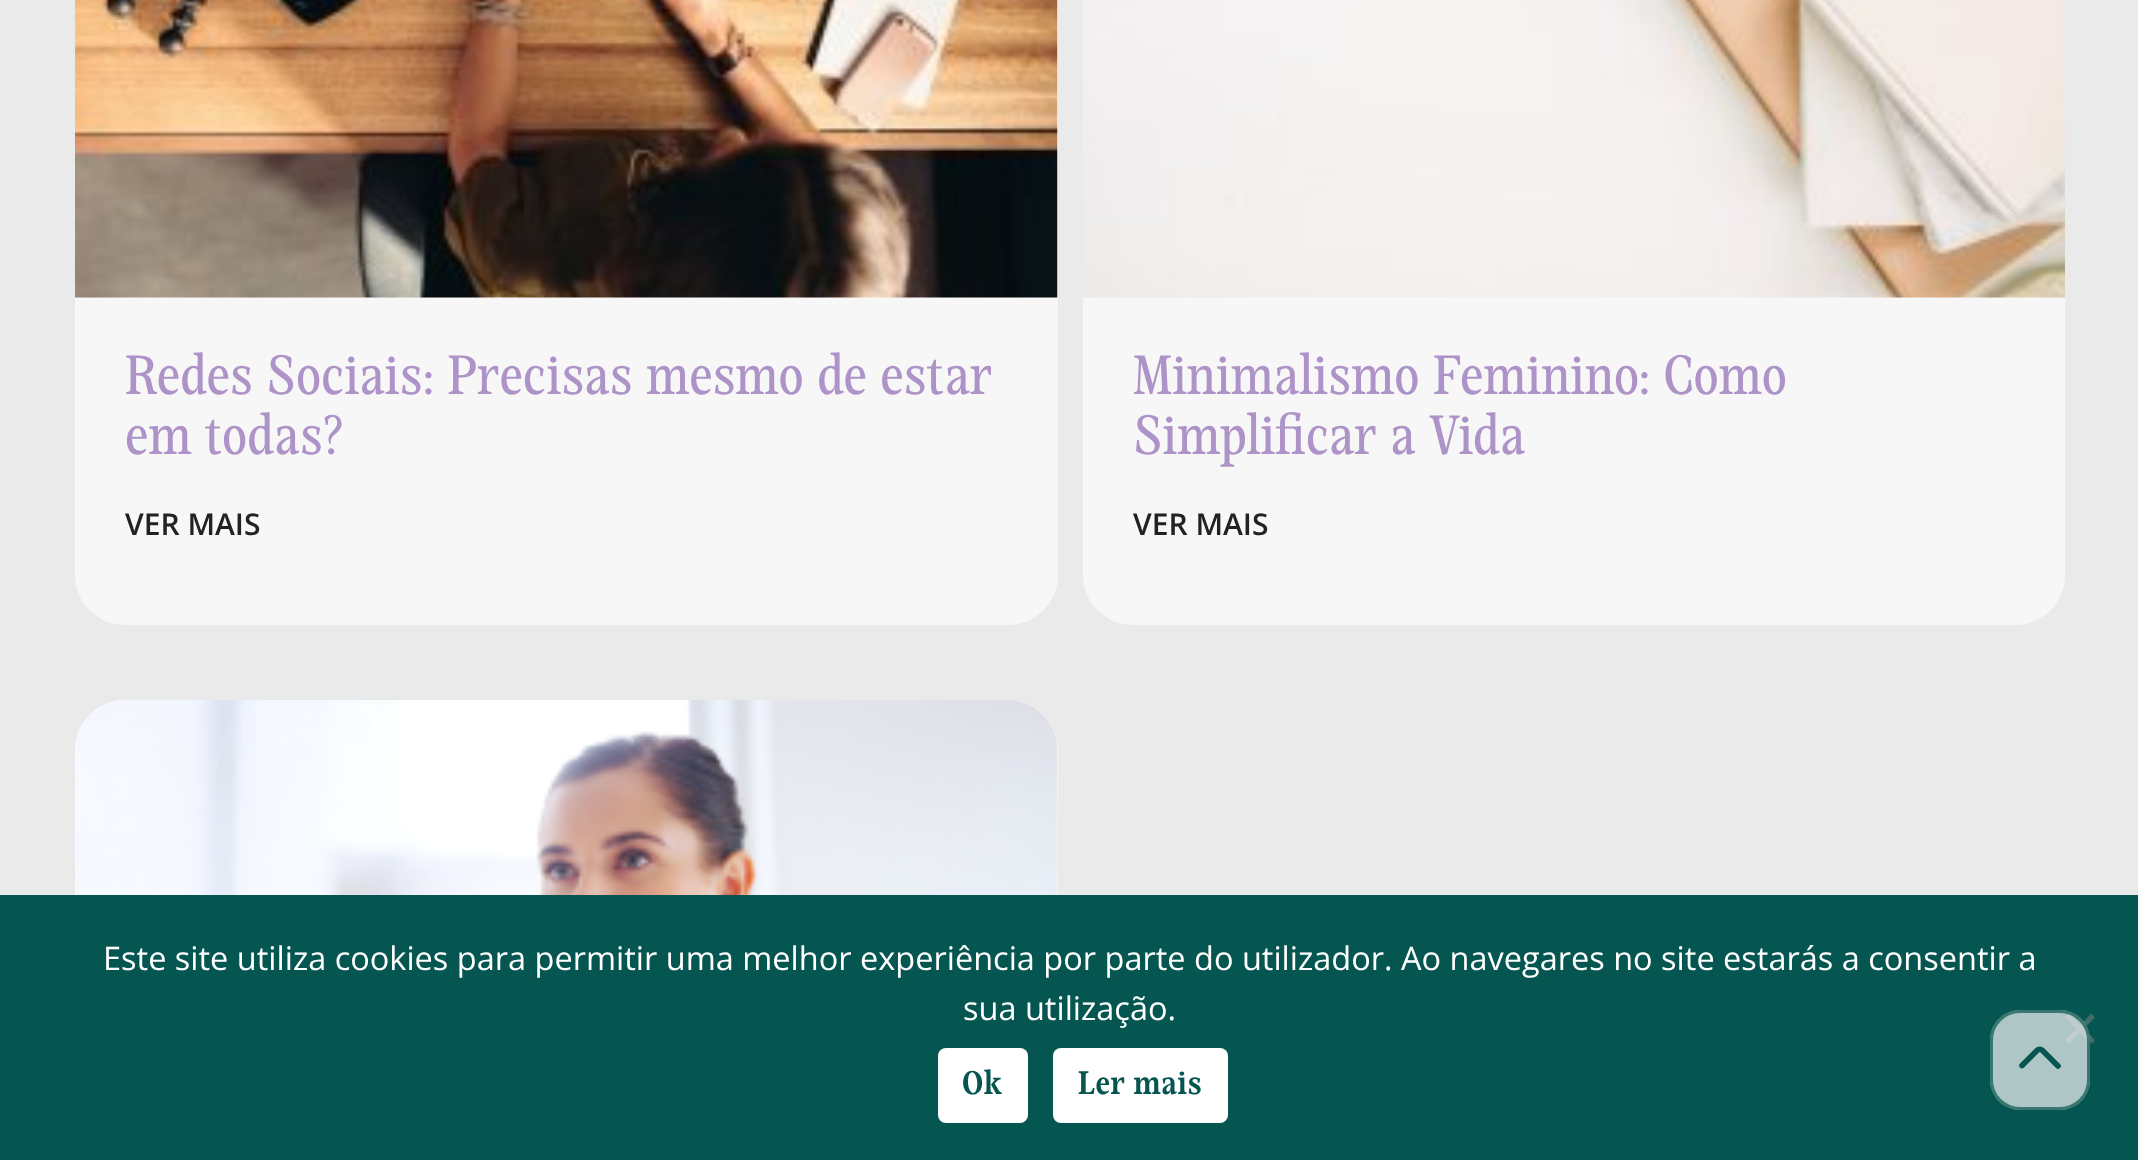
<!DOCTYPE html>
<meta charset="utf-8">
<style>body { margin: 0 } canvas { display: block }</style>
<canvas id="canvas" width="2138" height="1160"></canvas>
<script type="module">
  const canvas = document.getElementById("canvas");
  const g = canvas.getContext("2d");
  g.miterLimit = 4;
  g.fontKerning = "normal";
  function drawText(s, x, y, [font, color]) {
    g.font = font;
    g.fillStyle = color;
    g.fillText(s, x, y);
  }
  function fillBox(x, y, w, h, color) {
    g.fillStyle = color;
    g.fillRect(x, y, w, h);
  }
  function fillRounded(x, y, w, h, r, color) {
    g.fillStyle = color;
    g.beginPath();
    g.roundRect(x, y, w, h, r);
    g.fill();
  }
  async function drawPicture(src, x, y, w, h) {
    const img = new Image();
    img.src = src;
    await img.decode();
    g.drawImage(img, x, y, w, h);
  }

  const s1 = ["55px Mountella", "#AE93C8"];
  const s2 = ["600 30px Open Sans", "#222222"];
  const s3 = ["32.5px Open Sans", "#FFFFFF"];
  const s4 = ["600 32.5px Mountella", "#055650"];

  fillBox(0, 0, 2138, 1160, "#EAEAEA");
  fillRounded(75, -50, 983, 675, 50, "#F7F7F7");
  await drawPicture("pic1.png", 75, 0, 983, 298);
  drawText("Redes Sociais: Precisas mesmo de estar", 125, 394, s1);
  drawText("em todas?", 125, 454, s1);
  drawText("VER MAIS", 125, 535, s2);
  fillRounded(1083, -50, 982, 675, 50, "#F7F7F7");
  await drawPicture("pic2.png", 1083, 0, 982, 298);
  drawText("Minimalismo Feminino: Como", 1133, 394, s1);
  drawText("Simplificar a Vida", 1133, 454, s1);
  drawText("VER MAIS", 1133, 535, s2);
  fillRounded(75, 700, 983, 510, 50, "#F7F7F7");
  await drawPicture("pic3.png", 75, 700, 983, 195);
  fillBox(0, 895, 2138, 265, "#055650");
  drawText("Este site utiliza cookies para permitir uma melhor experiência por parte do utilizador. Ao navegares no site estarás a consentir a", 103, 970, s3);
  drawText("sua utilização.", 963, 1020, s3);
  g.fillStyle = "#436B68";
  g.beginPath();
  g.moveTo(2091.5, 1013.5);
  g.lineTo(2095, 1017.5);
  g.lineTo(2068.5, 1044);
  g.lineTo(2065, 1040);
  g.closePath();
  g.fill();
  g.beginPath();
  g.moveTo(2065, 1017.5);
  g.lineTo(2068.5, 1013.5);
  g.lineTo(2095, 1040);
  g.lineTo(2091.5, 1044);
  g.closePath();
  g.fill();
  fillRounded(938, 1048, 90, 75, 8, "#FFFFFF");
  g.letterSpacing = "0.5px";
  drawText("Ok", 962, 1094, s4);
  fillRounded(1053, 1048, 175, 75, 8, "#FFFFFF");
  drawText("Ler mais", 1078, 1094, s4);
  fillRounded(1990, 1010, 100, 100, 30, "rgba(247, 247, 247, 0.7)");
  g.beginPath();
  g.roundRect(1991.5, 1011.5, 97, 97, 28.5);
  g.strokeStyle = "rgba(5, 86, 80, 0.7)";
  g.lineWidth = 3;
  g.stroke();
  g.beginPath();
  g.moveTo(2058, 1066);
  g.lineTo(2042.5, 1050.5);
  g.bezierCurveTo(2041, 1049, 2038.5, 1049, 2037, 1050.5);
  g.lineTo(2022, 1065.5);
  g.strokeStyle = "#055650";
  g.lineWidth = 5.6;
  g.lineCap = "round";
  g.lineJoin = "bevel";
  g.stroke();
</script>
